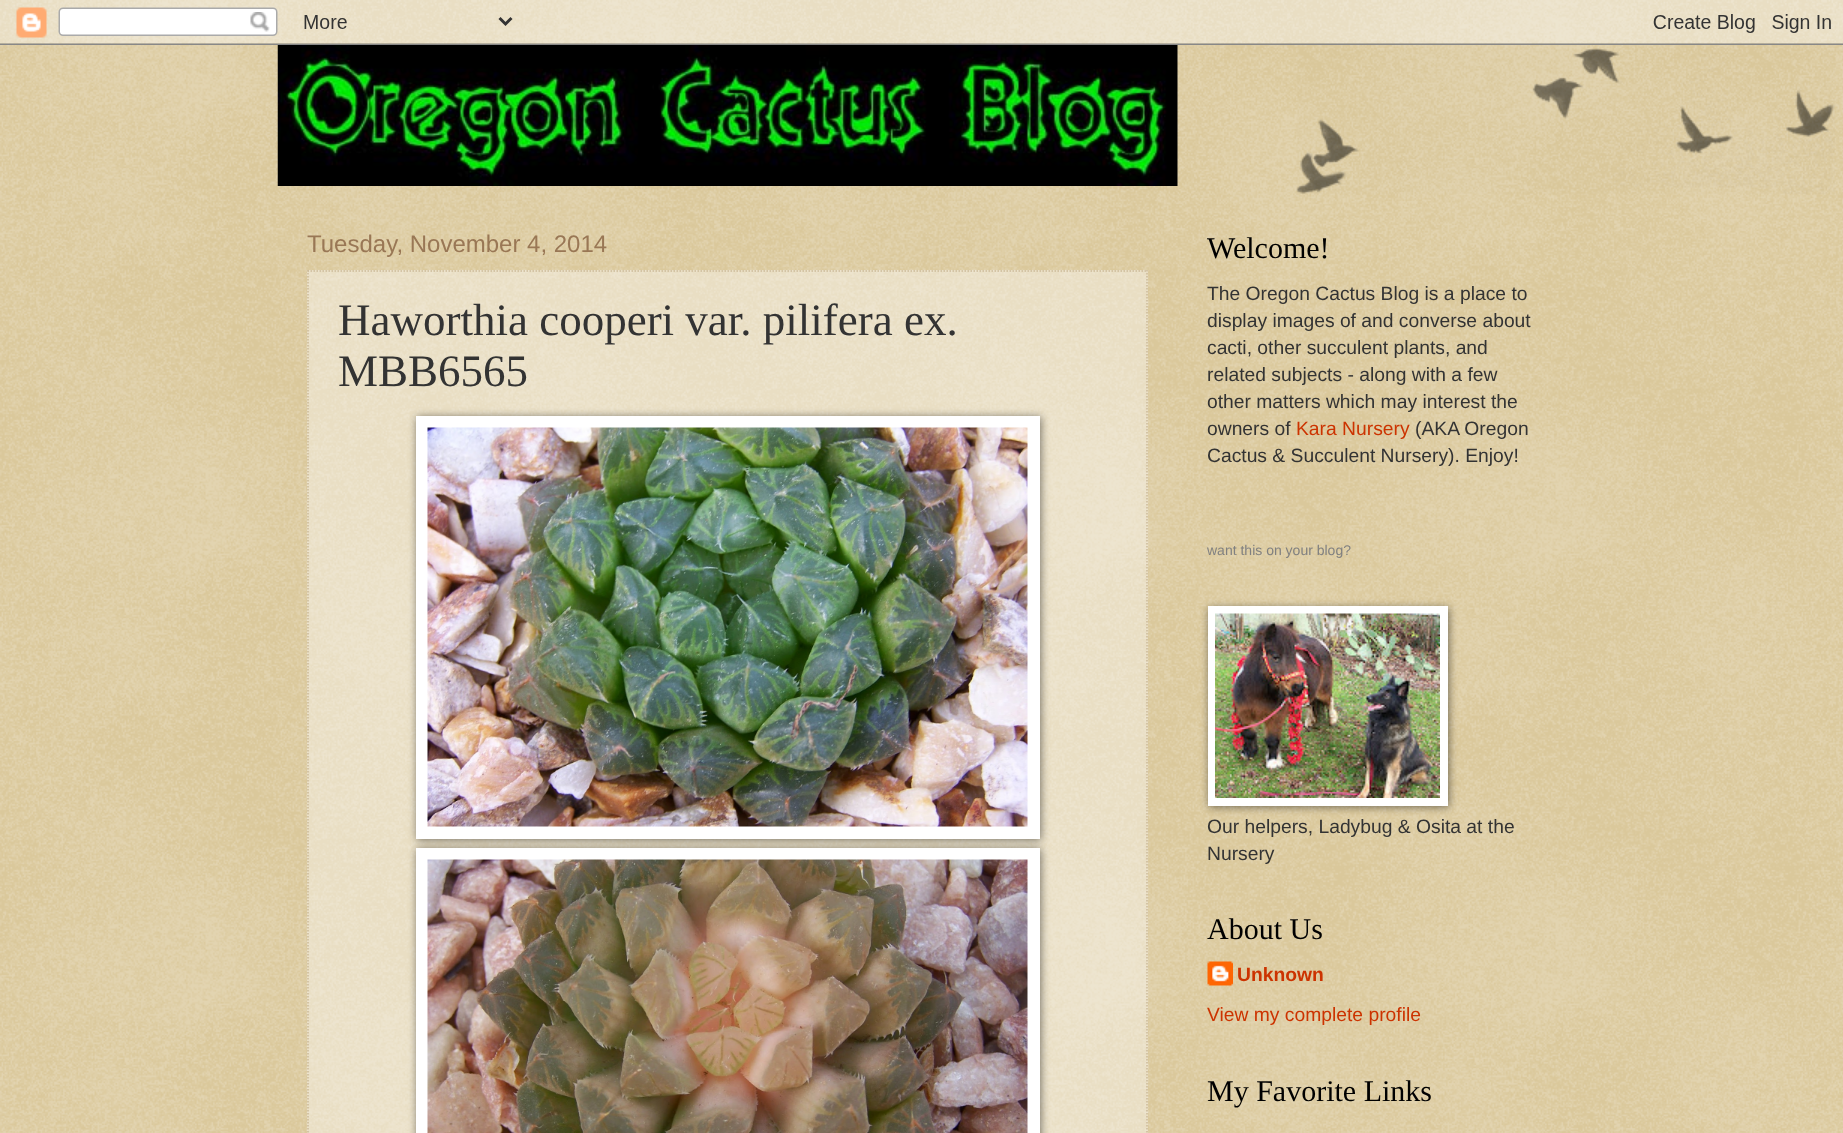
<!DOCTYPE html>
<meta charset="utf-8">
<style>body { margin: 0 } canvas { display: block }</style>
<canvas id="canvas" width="1843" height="1133"></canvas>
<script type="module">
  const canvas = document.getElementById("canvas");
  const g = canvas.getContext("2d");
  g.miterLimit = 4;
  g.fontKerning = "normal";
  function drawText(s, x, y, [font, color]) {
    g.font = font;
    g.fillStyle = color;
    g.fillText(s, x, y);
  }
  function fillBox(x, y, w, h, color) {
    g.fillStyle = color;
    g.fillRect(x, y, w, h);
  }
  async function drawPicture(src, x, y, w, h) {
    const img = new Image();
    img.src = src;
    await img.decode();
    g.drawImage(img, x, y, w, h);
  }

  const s1 = ["24px Liberation Sans", "#997755"];
  const s2 = ["45px Liberation Serif", "#333333"];
  const s3 = ["30px Liberation Serif", "#000000"];
  const s4 = ["19.3px Liberation Sans", "#333333"];
  const s5 = ["19.3px Liberation Sans", "#CC3300"];
  const s6 = ["14px Liberation Sans", "#808080"];
  const s7 = ["bold 19.3px Liberation Sans", "#CC3300"];

  fillBox(0, 0, 1843, 1133, "#C0A154");
  await drawPicture("pic1.png", 0, 0, 1843, 1133);
  await drawPicture("pic2.png", 0, 0, 1843, 45);
  await drawPicture("pic3.png", 1296, 48, 539, 146);
  await drawPicture("pic4.png", 277, 45, 901, 141);
  drawText("Tuesday, November 4, 2014", 307, 252, s1);
  fillBox(307, 270, 841, 863, "rgba(255, 255, 255, 0.4)");
  g.beginPath();
  g.moveTo(307.5, 271);
  g.lineTo(1147.5, 271);
  g.strokeStyle = "#CCBB99";
  g.lineWidth = 1.5;
  g.setLineDash([1.5, 1.5]);
  g.stroke();
  g.beginPath();
  g.moveTo(1147, 270);
  g.lineTo(1147, 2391);
  g.stroke();
  g.beginPath();
  g.moveTo(308, 270);
  g.lineTo(308, 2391);
  g.stroke();
  drawText("Haworthia cooperi var. pilifera ex.", 338, 335, s2);
  drawText("MBB6565", 338, 386, s2);
  g.fillStyle = "rgba(0, 0, 0, 0.5)";
  g.filter = "blur(4px)";
  g.beginPath();
  g.rect(417, 417, 624, 423);
  g.fill();
  g.filter = "none";
  fillBox(416, 416, 624, 423, "#FFFFFF");
  await drawPicture("pic5.png", 427, 427, 601, 400);
  g.fillStyle = "rgba(0, 0, 0, 0.5)";
  g.filter = "blur(4px)";
  g.beginPath();
  g.rect(417, 849, 624, 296);
  g.fill();
  g.filter = "none";
  fillBox(416, 848, 624, 285, "#FFFFFF");
  await drawPicture("pic6.png", 427, 859, 601, 274);
  drawText("Welcome!", 1207, 258, s3);
  drawText("The Oregon Cactus Blog is a place to", 1207, 300, s4);
  drawText("display images of and converse about", 1207, 327, s4);
  drawText("cacti, other succulent plants, and", 1207, 354, s4);
  drawText("related subjects - along with a few", 1207, 381, s4);
  drawText("other matters which may interest the", 1207, 408, s4);
  drawText("owners of", 1207, 435, s4);
  drawText("Kara Nursery", 1296, 435, s5);
  drawText("(AKA Oregon", 1415, 435, s4);
  drawText("Cactus & Succulent Nursery). Enjoy!", 1207, 462, s4);
  drawText("want this on your blog?", 1207, 555, s6);
  g.fillStyle = "rgba(0, 0, 0, 0.5)";
  g.filter = "blur(4px)";
  g.beginPath();
  g.rect(1209, 608, 240, 199);
  g.fill();
  g.filter = "none";
  fillBox(1208, 606, 240, 200, "#FFFFFF");
  await drawPicture("pic7.png", 1215, 613, 225, 185);
  drawText("Our helpers, Ladybug & Osita at the", 1207, 833, s4);
  drawText("Nursery", 1207, 860, s4);
  drawText("About Us", 1207, 939, s3);
  await drawPicture("pic8.png", 1207, 961, 26, 25);
  drawText("Unknown", 1237, 981, s7);
  drawText("View my complete profile", 1207, 1021, s5);
  drawText("My Favorite Links", 1207, 1101, s3);
</script>
